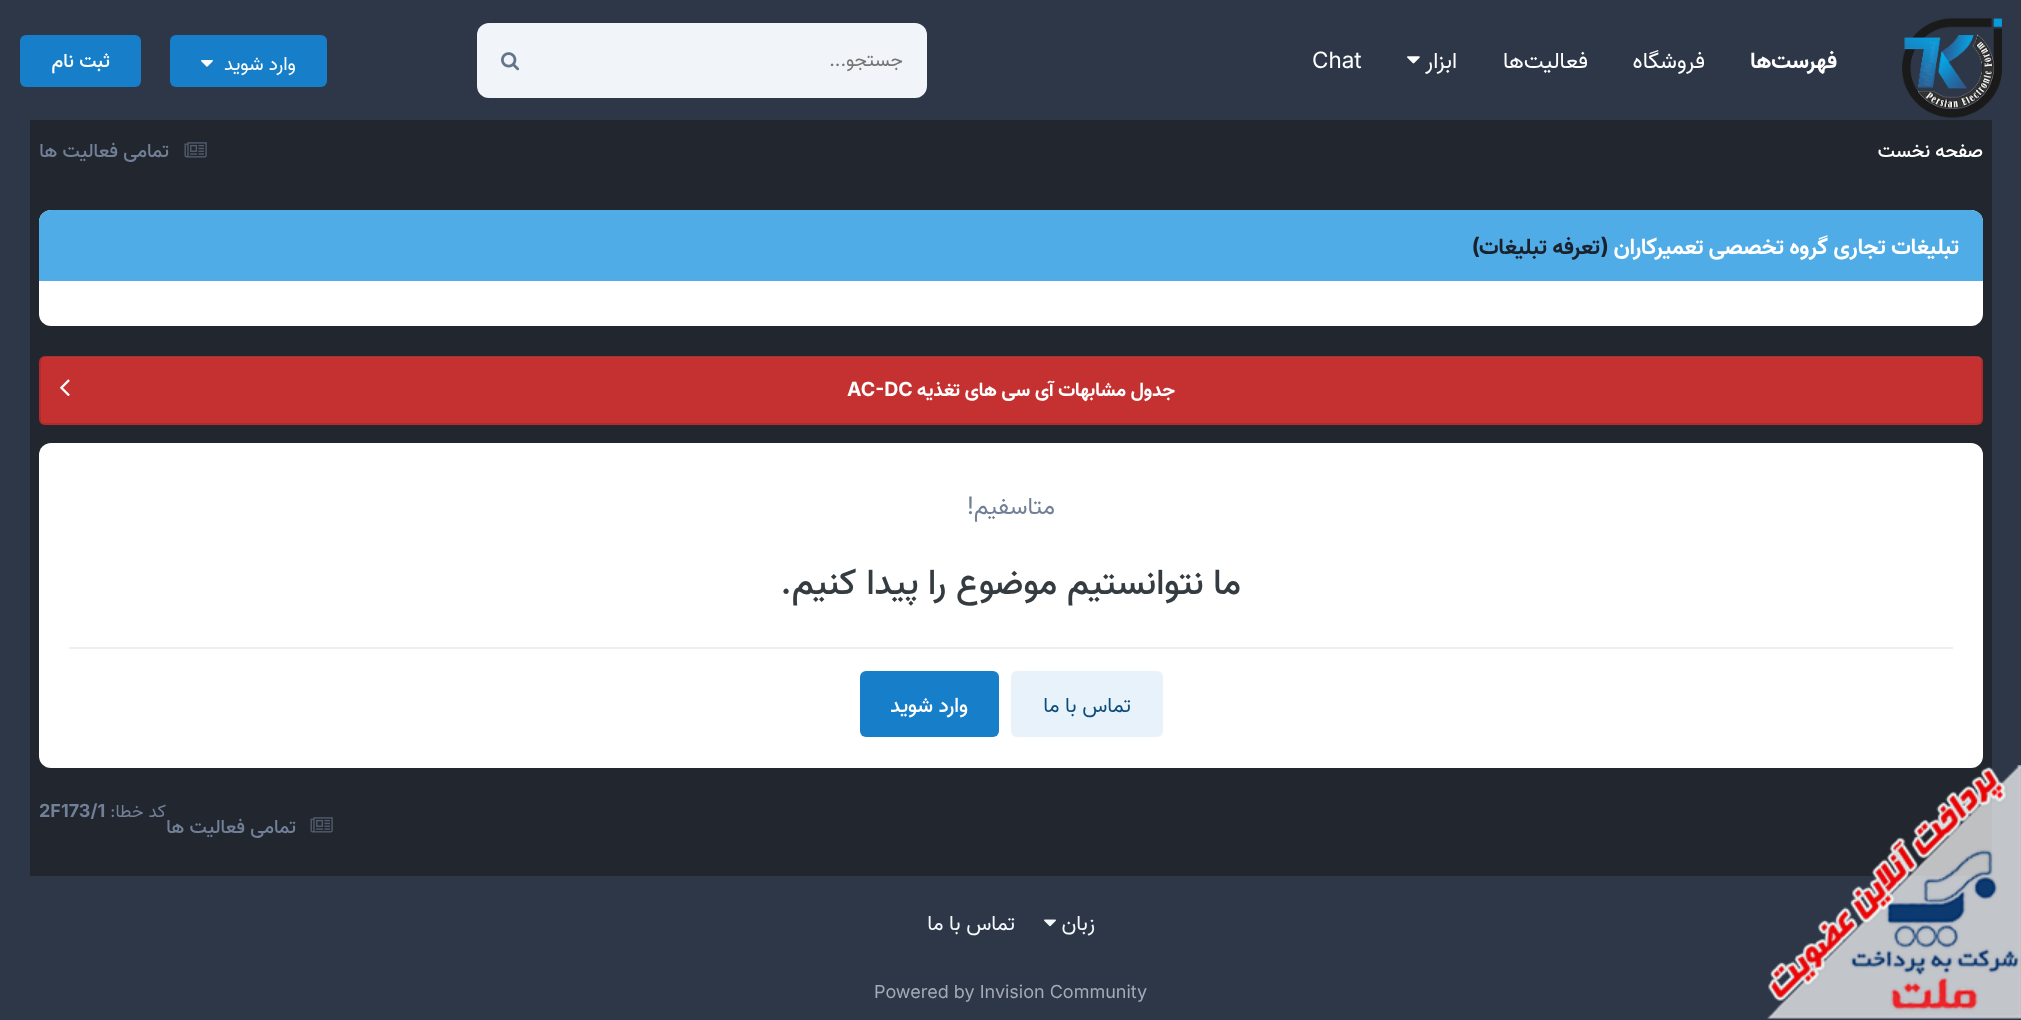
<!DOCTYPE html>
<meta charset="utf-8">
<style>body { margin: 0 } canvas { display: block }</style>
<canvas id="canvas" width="2021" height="1020"></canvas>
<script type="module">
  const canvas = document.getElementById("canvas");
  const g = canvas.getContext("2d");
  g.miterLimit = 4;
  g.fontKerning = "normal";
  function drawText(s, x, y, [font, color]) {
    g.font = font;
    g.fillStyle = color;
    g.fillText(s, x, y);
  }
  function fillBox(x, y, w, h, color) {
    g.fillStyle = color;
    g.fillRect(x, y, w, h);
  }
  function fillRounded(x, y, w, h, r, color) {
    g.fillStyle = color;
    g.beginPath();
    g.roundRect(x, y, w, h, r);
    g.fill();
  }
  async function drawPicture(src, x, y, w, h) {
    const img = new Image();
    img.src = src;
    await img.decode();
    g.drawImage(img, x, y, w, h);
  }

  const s1 = ["bold 22.5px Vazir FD", "#FFFFFF"];
  const s2 = ["22.5px Vazir FD", "#FFFFFF"];
  const s3 = ["22.5px Inter", "#FFFFFF"];
  const s4 = ["19.5px Vazir FD", "#757575"];
  const s5 = ["19.5px Inter", "#757575"];
  const s6 = ["19.5px Vazir FD", "#FFFFFF"];
  const s7 = ["500 19.5px Vazir FD", "#FFFFFF"];
  const s8 = ["500 19.5px Vazir FD", "#718096"];
  const s9 = ["bold 22.5px Inter", "#1A202C"];
  const s10 = ["bold 22.5px Vazir FD", "#1A202C"];
  const s11 = ["bold 19.5px Vazir FD", "#FFFFFF"];
  const s12 = ["bold 19.5px Inter", "#FFFFFF"];
  const s13 = ["24px Vazir FD", "#718096"];
  const s14 = ["24px Inter", "#718096"];
  const s15 = ["500 36px Vazir FD", "#353C41"];
  const s16 = ["21px Vazir FD", "#0E4C79"];
  const s17 = ["500 21px Vazir FD", "#FFFFFF"];
  const s18 = ["18px Vazir FD", "#718096"];
  const s19 = ["bold 18px Inter", "#718096"];
  const s20 = ["21px Vazir FD", "#F4F9FC"];
  const s21 = ["18px Inter", "#A4ABB4"];

  fillBox(0, 0, 2021, 1020, "#2D3748");
  await drawPicture("pic1.png", 1902, 18, 100, 100);
  g.direction = "rtl";
  drawText("فهرست‌ها", 1837, 68, s1);
  drawText("فروشگاه", 1705, 68, s2);
  drawText("فعالیت‌ها", 1588, 68, s2);
  drawText("ابزار", 1457, 68, s2);
  await drawPicture("pic2.png", 1407, 56, 13, 8);
  g.direction = "ltr";
  drawText("Chat", 1312, 68, s3);
  fillRounded(477, 23, 450, 75, 12, "#F1F5F9");
  g.direction = "rtl";
  drawText("جستجو", 903, 66, s4);
  drawText("...", 846, 66, s5);
  await drawPicture("pic3.png", 501, 52, 19, 19);
  fillRounded(170, 35, 157, 52, 6, "#177EC9");
  drawText("وارد شوید", 296, 70, s6);
  await drawPicture("pic4.png", 201, 60, 12, 7);
  fillRounded(20, 35, 121, 52, 6, "#177EC9");
  drawText("ثبت نام", 110, 67, s7);
  fillBox(30, 120, 1962, 756, "#22262F");
  drawText("صفحه نخست", 1983, 157, s7);
  await drawPicture("pic5.png", 184, 142, 23, 16);
  drawText("تمامی فعالیت ها", 169, 157, s8);
  fillRounded(39, 210, 1944, 116, 12, "#FFFFFF");
  g.fillStyle = "#50ACE7";
  g.beginPath();
  g.roundRect(39, 210, 1944, 71, [12, 12, 0, 0]);
  g.fill();
  g.wordSpacing = "-0.5px";
  drawText("تبلیغات تجاری گروه تخصصی تعمیرکاران", 1959, 254, s1);
  g.wordSpacing = "0px";
  drawText("(", 1609, 254, s9);
  g.wordSpacing = "-0.5px";
  drawText("تعرفه تبلیغات", 1600, 254, s10);
  g.wordSpacing = "0px";
  drawText(")", 1480, 254, s9);
  fillRounded(39, 356, 1944, 69, 6, "#C53030");
  g.fillStyle = "#CB4545";
  g.beginPath();
  g.moveTo(45, 358);
  g.lineTo(1977, 358);
  g.bezierCurveTo(1979, 358, 1982, 361, 1982, 363);
  g.lineTo(1982, 362);
  g.bezierCurveTo(1982, 359, 1980, 357, 1977, 357);
  g.lineTo(46, 357);
  g.bezierCurveTo(44, 357, 42, 358, 41, 360);
  g.bezierCurveTo(42, 359, 44, 358, 45, 358);
  g.closePath();
  g.fill();
  g.beginPath();
  g.roundRect(40, 357, 1942, 67, 5);
  g.strokeStyle = "rgba(0, 0, 0, 0.1)";
  g.lineWidth = 2;
  g.stroke();
  g.wordSpacing = "-0.5px";
  drawText("جدول مشابهات آی سی های تغذیه", 1175, 396, s11);
  g.wordSpacing = "0px";
  g.direction = "ltr";
  drawText("AC-DC", 847, 396, s12);
  await drawPicture("pic6.png", 60, 379, 10, 17);
  fillRounded(39, 443, 1944, 325, 12, "#FFFFFF");
  g.direction = "rtl";
  drawText("متاسفیم", 1055, 514, s13);
  drawText("!", 974, 514, s14);
  drawText("ما نتوانستیم موضوع را پیدا کنیم.", 1241, 594, s15);
  fillBox(69, 647, 1884, 2, "#EFEFF0");
  fillRounded(1011, 671, 152, 66, 6, "#E8F2FA");
  drawText("تماس با ما", 1131, 712, s16);
  fillRounded(860, 671, 139, 66, 6, "#177EC9");
  drawText("وارد شوید", 968, 712, s17);
  drawText("کد خطا:", 166, 817, s18);
  g.direction = "ltr";
  drawText("2F173/1", 39, 817, s19);
  await drawPicture("pic5.png", 310, 817, 23, 16);
  g.direction = "rtl";
  drawText("تمامی فعالیت ها", 296, 833, s8);
  await drawPicture("pic7.png", 1767, 765, 254, 254);
  drawText("زبان", 1095, 930, s20);
  await drawPicture("pic8.png", 1044, 919, 12, 8);
  drawText("تماس با ما", 1015, 930, s20);
  g.direction = "ltr";
  drawText("Powered by Invision Community", 874, 998, s21);
</script>
